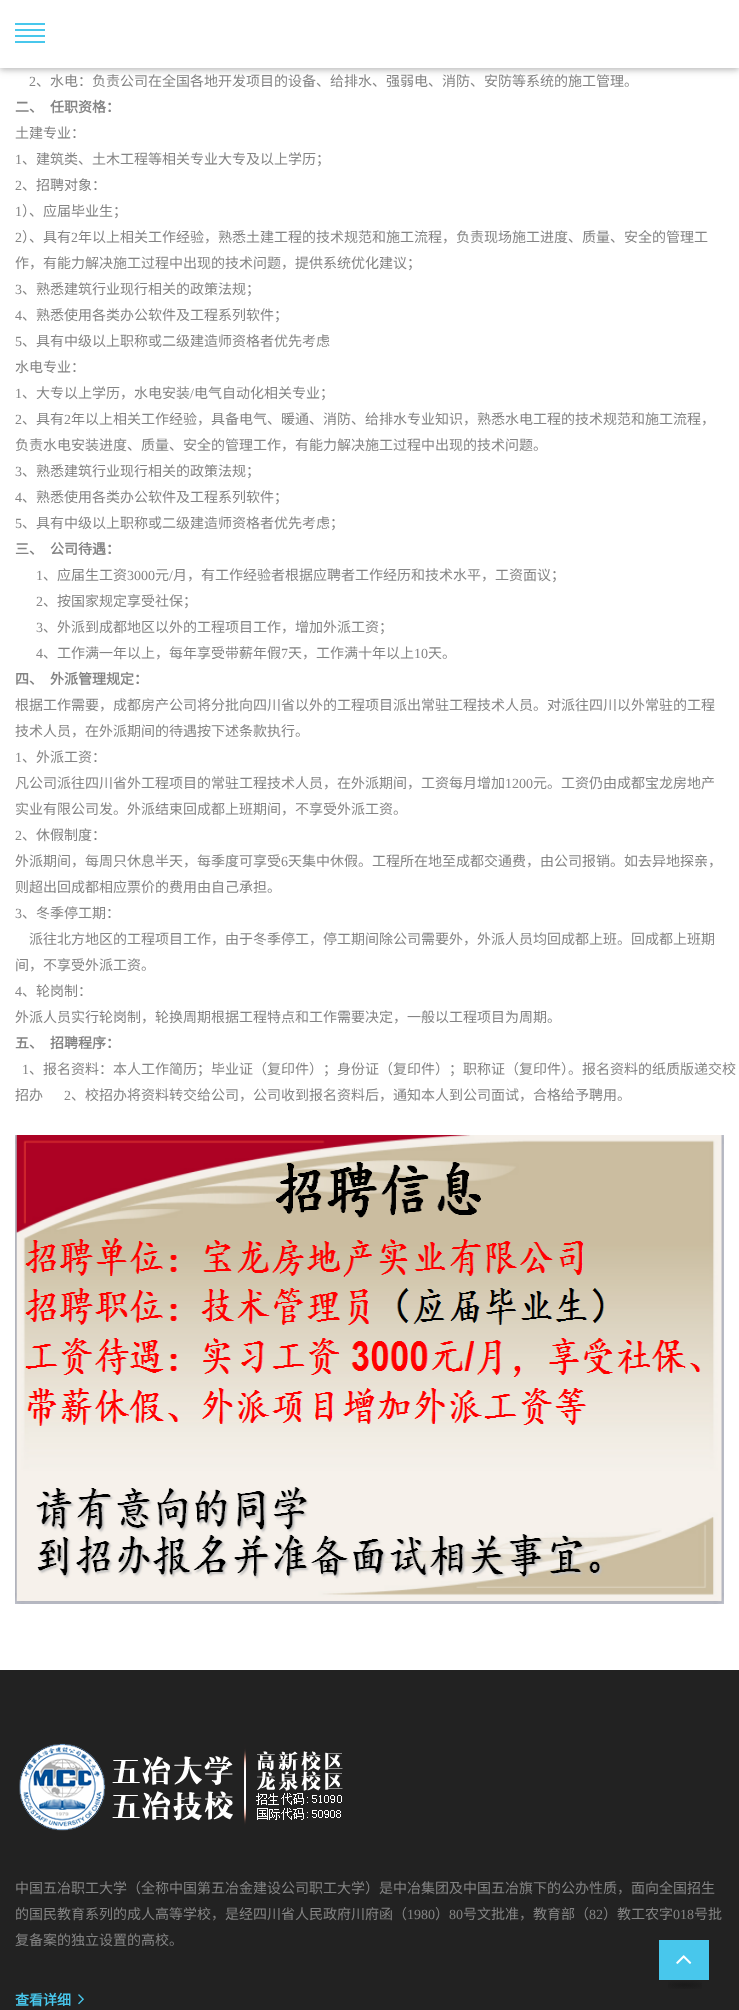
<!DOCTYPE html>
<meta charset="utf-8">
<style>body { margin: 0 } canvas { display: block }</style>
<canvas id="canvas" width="739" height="2010"></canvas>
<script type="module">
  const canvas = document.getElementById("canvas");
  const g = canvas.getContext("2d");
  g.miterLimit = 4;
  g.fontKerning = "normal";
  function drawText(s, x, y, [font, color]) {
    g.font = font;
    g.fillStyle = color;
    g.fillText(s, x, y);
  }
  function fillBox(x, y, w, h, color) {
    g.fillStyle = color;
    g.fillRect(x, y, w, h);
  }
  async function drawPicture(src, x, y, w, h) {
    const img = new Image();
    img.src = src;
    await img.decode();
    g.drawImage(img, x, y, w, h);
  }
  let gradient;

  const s1 = ["14px Liberation Serif", "#848484"];
  const s2 = ["14px Noto Sans CJK SC", "#848484"];
  const s3 = ["bold 14px Noto Sans CJK SC", "#848484"];
  const s4 = ["bold 14px Noto Sans CJK SC", "#48C7EC"];

  fillBox(0, 0, 739, 2010, "#FFFFFF");
  g.fillStyle = "rgba(0, 0, 0, 0.12)";
  g.filter = "blur(5px)";
  g.beginPath();
  g.rect(0, 2, 739, 68);
  g.fill();
  g.filter = "none";
  g.fillStyle = "rgba(0, 0, 0, 0.16)";
  g.filter = "blur(2.5px)";
  g.beginPath();
  g.rect(0, 2, 739, 68);
  g.fill();
  g.filter = "none";
  fillBox(0, 0, 739, 68, "#FFFFFF");
  fillBox(15, 23, 30, 2, "#48C7EC");
  fillBox(15, 29, 30, 2, "#48C7EC");
  fillBox(15, 35, 30, 2, "#48C7EC");
  fillBox(15, 41, 30, 2, "#48C7EC");
  drawText("2", 29, 86, s1);
  drawText("、水电：负责公司在全国各地开发项目的设备、给排水、强弱电、消防、安防等系统的施工管理。", 36, 86, s2);
  drawText("二、　任职资格：", 15, 112, s3);
  drawText("土建专业：", 15, 138, s2);
  drawText("1", 15, 164, s1);
  drawText("、建筑类、土木工程等相关专业大专及以上学历；", 22, 164, s2);
  drawText("2", 15, 190, s1);
  drawText("、招聘对象：", 22, 190, s2);
  drawText("1", 15, 216, s1);
  drawText("）、应届毕业生；", 22, 216, s2);
  drawText("2", 15, 242, s1);
  drawText("）、具有", 22, 242, s2);
  drawText("2", 71, 242, s1);
  drawText("年以上相关工作经验，熟悉土建工程的技术规范和施工流程，负责现场施工进度、质量、安全的管理工", 78, 242, s2);
  drawText("作，有能力解决施工过程中出现的技术问题，提供系统优化建议；", 15, 268, s2);
  drawText("3", 15, 294, s1);
  drawText("、熟悉建筑行业现行相关的政策法规；", 22, 294, s2);
  drawText("4", 15, 320, s1);
  drawText("、熟悉使用各类办公软件及工程系列软件；", 22, 320, s2);
  drawText("5", 15, 346, s1);
  drawText("、具有中级以上职称或二级建造师资格者优先考虑", 22, 346, s2);
  drawText("水电专业：", 15, 372, s2);
  drawText("1", 15, 398, s1);
  drawText("、大专以上学历，水电安装", 22, 398, s2);
  drawText("/", 190, 398, s1);
  drawText("电气自动化相关专业；", 194, 398, s2);
  drawText("2", 15, 424, s1);
  drawText("、具有", 22, 424, s2);
  drawText("2", 64, 424, s1);
  drawText("年以上相关工作经验，具备电气、暖通、消防、给排水专业知识，熟悉水电工程的技术规范和施工流程，", 71, 424, s2);
  drawText("负责水电安装进度、质量、安全的管理工作，有能力解决施工过程中出现的技术问题。", 15, 450, s2);
  drawText("3", 15, 476, s1);
  drawText("、熟悉建筑行业现行相关的政策法规；", 22, 476, s2);
  drawText("4", 15, 502, s1);
  drawText("、熟悉使用各类办公软件及工程系列软件；", 22, 502, s2);
  drawText("5", 15, 528, s1);
  drawText("、具有中级以上职称或二级建造师资格者优先考虑；", 22, 528, s2);
  drawText("三、　公司待遇：", 15, 554, s3);
  drawText("1", 36, 580, s1);
  drawText("、应届生工资", 43, 580, s2);
  drawText("3000", 127, 580, s1);
  drawText("元", 155, 580, s2);
  drawText("/", 169, 580, s1);
  drawText("月，有工作经验者根据应聘者工作经历和技术水平，工资面议；", 173, 580, s2);
  drawText("2", 36, 606, s1);
  drawText("、按国家规定享受社保；", 43, 606, s2);
  drawText("3", 36, 632, s1);
  drawText("、外派到成都地区以外的工程项目工作，增加外派工资；", 43, 632, s2);
  drawText("4", 36, 658, s1);
  drawText("、工作满一年以上，每年享受带薪年假", 43, 658, s2);
  drawText("7", 281, 658, s1);
  drawText("天，工作满十年以上", 288, 658, s2);
  drawText("10", 414, 658, s1);
  drawText("天。", 428, 658, s2);
  drawText("四、　外派管理规定：", 15, 684, s3);
  drawText("根据工作需要，成都房产公司将分批向四川省以外的工程项目派出常驻工程技术人员。对派往四川以外常驻的工程", 15, 710, s2);
  drawText("技术人员，在外派期间的待遇按下述条款执行。", 15, 736, s2);
  drawText("1", 15, 762, s1);
  drawText("、外派工资：", 22, 762, s2);
  drawText("凡公司派往四川省外工程项目的常驻工程技术人员，在外派期间，工资每月增加", 15, 788, s2);
  drawText("1200", 505, 788, s1);
  drawText("元。工资仍由成都宝龙房地产", 533, 788, s2);
  drawText("实业有限公司发。外派结束回成都上班期间，不享受外派工资。", 15, 814, s2);
  drawText("2", 15, 840, s1);
  drawText("、休假制度：", 22, 840, s2);
  drawText("外派期间，每周只休息半天，每季度可享受", 15, 866, s2);
  drawText("6", 281, 866, s1);
  drawText("天集中休假。工程所在地至成都交通费，由公司报销。如去异地探亲，", 288, 866, s2);
  drawText("则超出回成都相应票价的费用由自己承担。", 15, 892, s2);
  drawText("3", 15, 918, s1);
  drawText("、冬季停工期：", 22, 918, s2);
  drawText("派往北方地区的工程项目工作，由于冬季停工，停工期间除公司需要外，外派人员均回成都上班。回成都上班期", 29, 944, s2);
  drawText("间，不享受外派工资。", 15, 970, s2);
  drawText("4", 15, 996, s1);
  drawText("、轮岗制：", 22, 996, s2);
  drawText("外派人员实行轮岗制，轮换周期根据工程特点和工作需要决定，一般以工程项目为周期。", 15, 1022, s2);
  drawText("五、　招聘程序：", 15, 1048, s3);
  drawText("1", 22, 1074, s1);
  drawText("、报名资料：本人工作简历；毕业证（复印件）；身份证（复印件）；职称证（复印件）。报名资料的纸质版递交校", 29, 1074, s2);
  drawText("招办", 15, 1100, s2);
  drawText("2", 64, 1100, s1);
  drawText("、校招办将资料转交给公司，公司收到报名资料后，通知本人到公司面试，合格给予聘用。", 71, 1100, s2);
  await drawPicture("pic1.png", 15, 1135, 709, 469);
  fillBox(0, 1670, 739, 340, "#222222");
  await drawPicture("pic2.png", 19, 1743, 324, 88);
  drawText("中国五冶职工大学（全称中国第五冶金建设公司职工大学）是中冶集团及中国五冶旗下的公办性质，面向全国招生", 15, 1893, s2);
  drawText("的国民教育系列的成人高等学校，是经四川省人民政府川府函（", 15, 1919, s2);
  drawText("1980", 407, 1919, s1);
  drawText("）", 435, 1919, s2);
  drawText("80", 449, 1919, s1);
  drawText("号文批准，教育部（", 463, 1919, s2);
  drawText("82", 589, 1919, s1);
  drawText("）教工农字", 603, 1919, s2);
  drawText("018", 673, 1919, s1);
  drawText("号批", 694, 1919, s2);
  drawText("复备案的独立设置的高校。", 15, 1945, s2);
  drawText("查看详细", 15, 2005, s4);
  await drawPicture("pic3.png", 78, 1994, 6, 11);
  fillBox(659, 1940, 50, 40, "#48C7EC");
  await drawPicture("pic4.png", 676, 1955, 16, 9);
  gradient = g.createRadialGradient(685, 8946.48, 0, 685, 8946.48, 32);
  gradient.addColorStop(0, "#1A1A1A");
  gradient.addColorStop(0.8, "#222222");
  g.fillStyle = gradient;
  g.beginPath();
  g.rect(668, 1981, 34, 8);
  g.save();
  g.clip();
  g.scale(1, 7.1 / 32);
  g.fillRect(0, 0, 739, 9060);
  g.restore();
</script>
